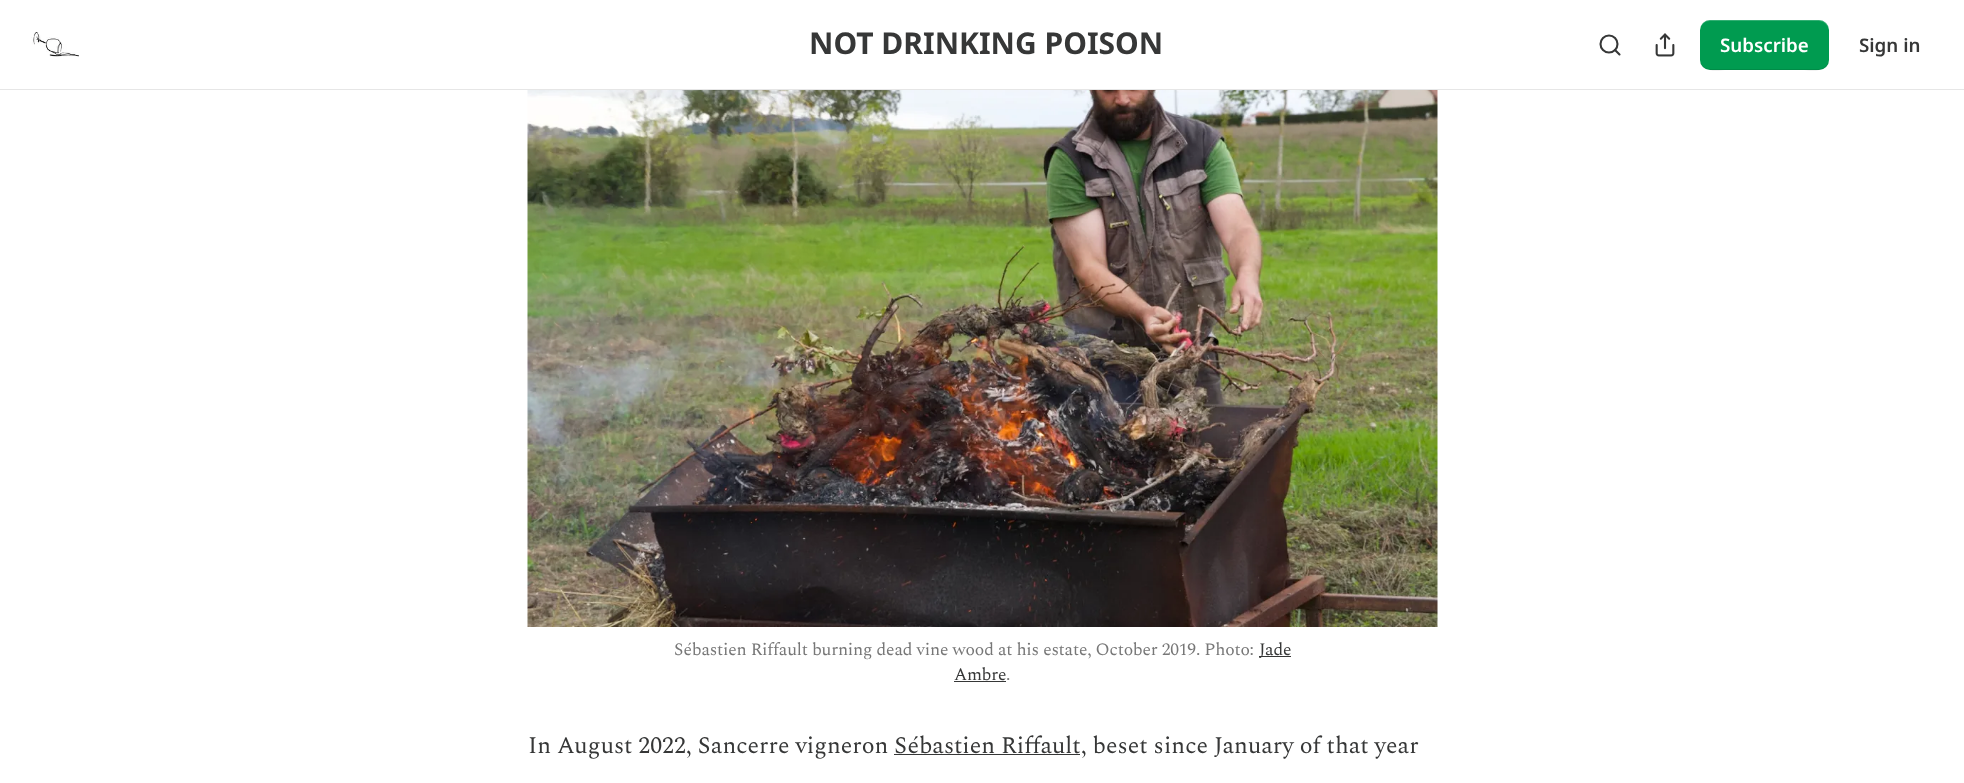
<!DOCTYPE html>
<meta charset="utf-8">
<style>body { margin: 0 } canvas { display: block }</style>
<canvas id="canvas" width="1964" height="783"></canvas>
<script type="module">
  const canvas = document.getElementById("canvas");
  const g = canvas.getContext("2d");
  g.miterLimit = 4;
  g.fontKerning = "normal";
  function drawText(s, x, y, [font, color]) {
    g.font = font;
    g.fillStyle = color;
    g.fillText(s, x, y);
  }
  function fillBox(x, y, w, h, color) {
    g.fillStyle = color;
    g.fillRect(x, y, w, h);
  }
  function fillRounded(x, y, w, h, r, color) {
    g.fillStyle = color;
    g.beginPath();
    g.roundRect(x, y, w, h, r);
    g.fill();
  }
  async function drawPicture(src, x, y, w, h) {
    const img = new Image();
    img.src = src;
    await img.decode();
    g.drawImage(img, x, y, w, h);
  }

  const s1 = ["bold 30px Noto Sans", "#363737"];
  const s2 = ["600 18.75px Noto Sans", "#FFFFFF"];
  const s3 = ["600 18.75px Noto Sans", "#363737"];
  const s4 = ["17.5px Spectral", "#777777"];
  const s5 = ["17.5px Spectral", "#363737"];
  const s6 = ["23.75px Spectral", "#363737"];

  fillBox(0, 0, 1964, 783, "#FFFFFF");
  fillBox(0, 89, 1964, 1, "#E6E6E6");
  await drawPicture("pic1.png", 31, 32, 48, 25);
  drawText("NOT DRINKING POISON", 809, 54, s1);
  g.beginPath();
  g.arc(1609, 44, 8.5, 0, Math.PI * 2);
  g.strokeStyle = "#363737";
  g.lineWidth = 2.1;
  g.stroke();
  g.beginPath();
  g.moveTo(1619.5, 54.5);
  g.lineTo(1615, 50);
  g.lineCap = "round";
  g.lineJoin = "round";
  g.stroke();
  await drawPicture("pic2.png", 1655, 33, 20, 24);
  fillRounded(1700, 20, 129, 50, 10, "#009B50");
  g.fillStyle = "rgba(0, 0, 0, 0.1)";
  g.beginPath();
  g.moveTo(1700, 59);
  g.bezierCurveTo(1700, 74, 1718, 70, 1728, 70);
  g.lineTo(1801, 70);
  g.bezierCurveTo(1811, 70, 1829, 74, 1829, 59);
  g.bezierCurveTo(1829, 64, 1824, 69, 1819, 69);
  g.lineTo(1710, 69);
  g.bezierCurveTo(1704, 69, 1700, 64, 1700, 59);
  g.closePath();
  g.fill();
  g.fillStyle = "rgba(255, 255, 255, 0.2)";
  g.beginPath();
  g.moveTo(1710, 21);
  g.lineTo(1819, 21);
  g.bezierCurveTo(1824, 21, 1829, 26, 1829, 31);
  g.bezierCurveTo(1829, 16, 1811, 20, 1801, 20);
  g.lineTo(1728, 20);
  g.bezierCurveTo(1718, 20, 1700, 16, 1700, 31);
  g.bezierCurveTo(1700, 26, 1704, 21, 1710, 21);
  g.closePath();
  g.fill();
  drawText("Subscribe", 1720, 52, s2);
  drawText("Sign in", 1859, 52, s3);
  await drawPicture("pic3.png", 527, 90, 911, 537);
  g.letterSpacing = "-0.2px";
  drawText("Sébastien Riffault burning dead vine wood at his estate, October 2019. Photo:", 674, 655, s4);
  fillBox(1259, 656, 32, 1, "#363737");
  drawText("Jade", 1259, 655, s5);
  drawText("Ambre", 954, 680, s5);
  fillBox(954, 681, 52, 1, "#363737");
  drawText(".", 1006, 680, s4);
  g.letterSpacing = "0px";
  drawText("In August 2022, Sancerre vigneron Sébastien Riffault, beset since January of that year", 528, 753, s6);
  fillBox(894, 754, 186, 1, "#363737");
</script>
